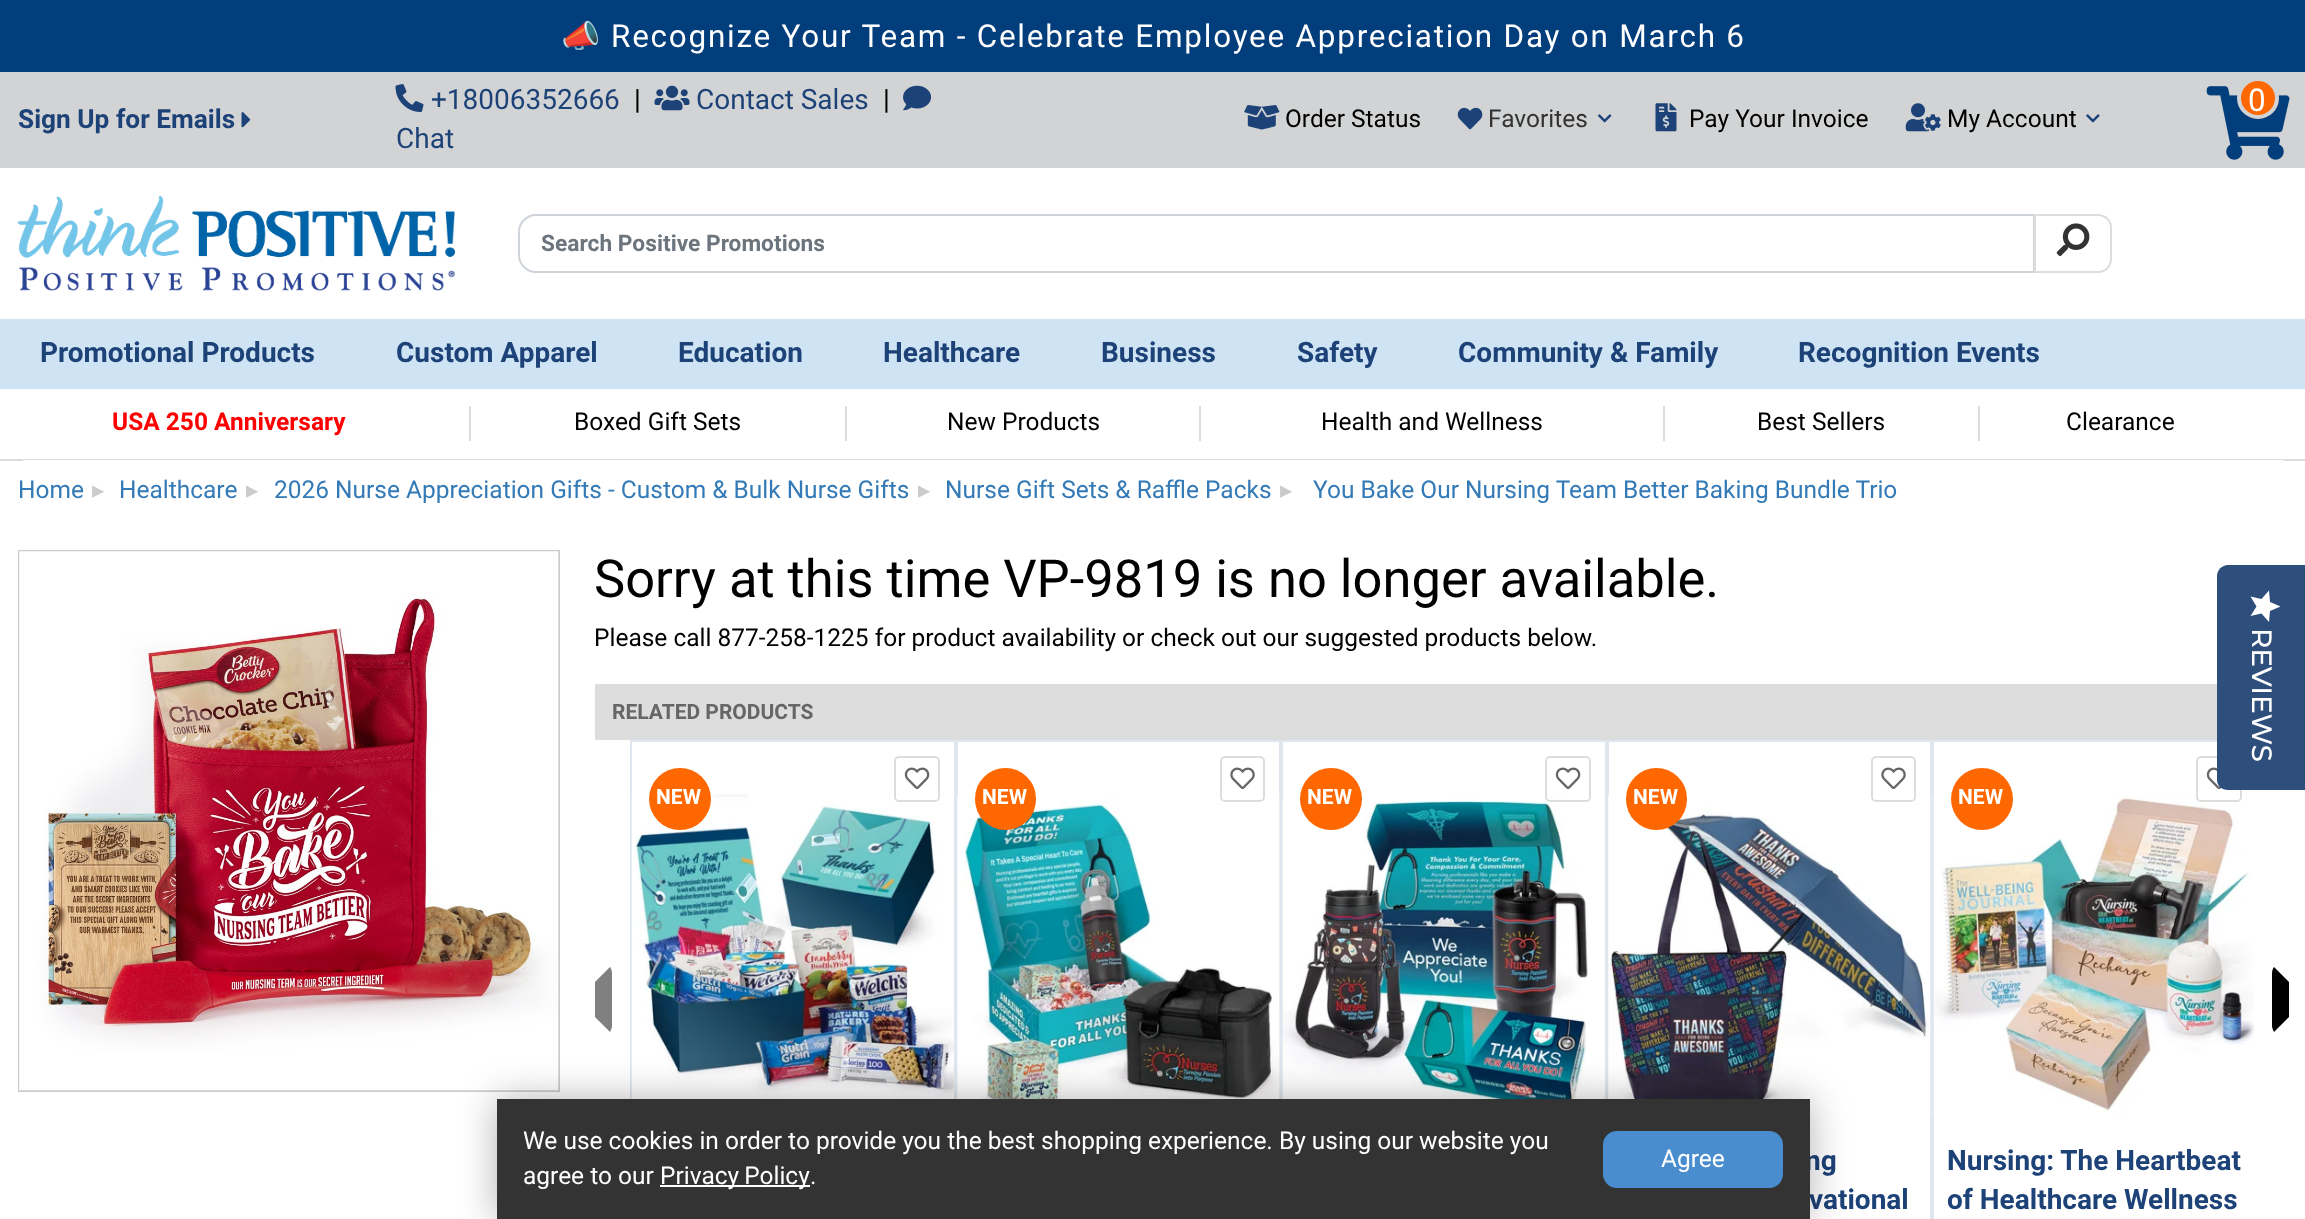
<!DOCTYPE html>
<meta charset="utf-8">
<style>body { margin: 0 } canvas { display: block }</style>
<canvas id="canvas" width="2305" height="1219"></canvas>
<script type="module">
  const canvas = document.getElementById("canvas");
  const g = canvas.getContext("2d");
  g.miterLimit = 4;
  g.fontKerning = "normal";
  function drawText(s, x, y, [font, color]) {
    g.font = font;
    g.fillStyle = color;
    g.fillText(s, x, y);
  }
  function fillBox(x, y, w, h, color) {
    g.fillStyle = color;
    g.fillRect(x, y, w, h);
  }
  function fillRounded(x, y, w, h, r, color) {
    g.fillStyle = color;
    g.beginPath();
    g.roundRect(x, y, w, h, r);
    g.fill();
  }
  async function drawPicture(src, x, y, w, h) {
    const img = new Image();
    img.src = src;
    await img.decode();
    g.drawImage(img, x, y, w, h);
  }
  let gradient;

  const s1 = ["31.5px Noto Color Emoji", "#FFFFFF"];
  const s2 = ["31.5px Roboto", "#FFFFFF"];
  const s3 = ["bold 26.25px Roboto", "#1D4278"];
  const s4 = ["28px Roboto", "#1D4278"];
  const s5 = ["28px Roboto", "#000000"];
  const s6 = ["24.5px Roboto", "#000000"];
  const s7 = ["24.5px Roboto", "#333333"];
  const s8 = ["bold 22.75px Roboto", "#6C757D"];
  const s9 = ["bold 28px Roboto", "#1D4278"];
  const s10 = ["bold 24.5px Roboto", "#FF0000"];
  const s11 = ["24.5px Roboto", "#337AB7"];
  const s12 = ["24.5px DejaVu Sans", "#CCCCCC"];
  const s13 = ["52.5px Roboto", "#000000"];
  const s14 = ["bold 21px Roboto", "#666666"];
  const s15 = ["bold 21px Roboto", "#FFFFFF"];
  const s16 = ["24.5px Roboto", "#FFFFFF"];

  fillBox(0, 0, 2305, 1219, "#FFFFFF");
  fillBox(0, 0, 2305, 72, "#033E7C");
  g.letterSpacing = "1.75px";
  drawText("📣", 561, 47, s1);
  drawText("Recognize Your Team - Celebrate Employee Appreciation Day on March 6", 611, 47, s2);
  fillBox(0, 72, 2305, 96, "#D1D3D4");
  g.letterSpacing = "0px";
  drawText("Sign Up for Emails", 18, 128, s3);
  await drawPicture("pic1.png", 241, 112, 10, 16);
  await drawPicture("pic2.png", 395, 84, 29, 28);
  drawText("+18006352666", 431, 109, s4);
  drawText("|", 634, 109, s5);
  await drawPicture("pic3.png", 654, 85, 36, 26);
  drawText("Contact Sales", 696, 109, s4);
  drawText("|", 883, 109, s5);
  await drawPicture("pic4.png", 903, 85, 28, 26);
  drawText("Chat", 396, 148, s4);
  await drawPicture("pic5.png", 1244, 105, 36, 25);
  drawText("Order Status", 1285, 127, s6);
  await drawPicture("pic6.png", 1457, 107, 26, 23);
  drawText("Favorites", 1488, 127, s7);
  await drawPicture("pic7.png", 1598, 114, 14, 9);
  await drawPicture("pic8.png", 1655, 103, 22, 29);
  drawText("Pay Your Invoice", 1689, 127, s6);
  await drawPicture("pic9.png", 1905, 103, 36, 29);
  drawText("My Account", 1947, 127, s6);
  await drawPicture("pic10.png", 2086, 114, 14, 9);
  await drawPicture("pic11.png", 2206, 86, 84, 74);
  g.fillStyle = "#FF6700";
  g.beginPath();
  g.arc(2258, 98, 19, 0, Math.PI * 2);
  g.fill();
  g.strokeStyle = "#D1D3D4";
  g.lineWidth = 4;
  g.stroke();
  drawText("0", 2248, 111, s2);
  await drawPicture("pic12.png", 17, 196, 438, 95);
  g.beginPath();
  g.roundRect(519, 215, 1515, 57, [17, 0, 0, 17]);
  g.strokeStyle = "#CED4DA";
  g.lineWidth = 2;
  g.stroke();
  drawText("Search Positive Promotions", 541, 251, s8);
  g.fillStyle = "#FFFFFF";
  g.beginPath();
  g.roundRect(2035, 215, 76, 57, [0, 13, 13, 0]);
  g.fill();
  g.strokeStyle = "#DDDDDD";
  g.stroke();
  await drawPicture("pic13.png", 2056, 223, 34, 33);
  fillBox(0, 319, 2305, 70, "#CEE3F3");
  drawText("Promotional Products", 40, 362, s9);
  drawText("Custom Apparel", 396, 362, s9);
  drawText("Education", 678, 362, s9);
  drawText("Healthcare", 883, 362, s9);
  drawText("Business", 1101, 362, s9);
  drawText("Safety", 1297, 362, s9);
  drawText("Community & Family", 1458, 362, s9);
  drawText("Recognition Events", 1798, 362, s9);
  fillBox(0, 459, 2305, 2, "#DADDE0");
  fillBox(469, 406, 2, 35, "#DADDE0");
  drawText("USA 250 Anniversary", 112, 430, s10);
  fillBox(845, 406, 2, 35, "#DADDE0");
  drawText("Boxed Gift Sets", 574, 430, s6);
  fillBox(1199, 406, 2, 35, "#DADDE0");
  drawText("New Products", 947, 430, s6);
  fillBox(1663, 406, 2, 35, "#DADDE0");
  drawText("Health and Wellness", 1321, 430, s6);
  fillBox(1978, 406, 2, 35, "#DADDE0");
  drawText("Best Sellers", 1757, 430, s6);
  drawText("Clearance", 2066, 430, s6);
  fillRounded(18, 460, 2271, 62, 7, "#FFFFFF");
  drawText("Home", 18, 498, s11);
  drawText("▸", 92, 498, s12);
  drawText("Healthcare", 119, 498, s11);
  drawText("▸", 246, 498, s12);
  drawText("2026 Nurse Appreciation Gifts - Custom & Bulk Nurse Gifts", 274, 498, s11);
  drawText("▸", 918, 498, s12);
  drawText("Nurse Gift Sets & Raffle Packs", 945, 498, s11);
  drawText("▸", 1280, 498, s12);
  drawText("You Bake Our Nursing Team Better Baking Bundle Trio", 1313, 498, s11);
  g.strokeStyle = "#CCCCCC";
  g.strokeRect(19, 551, 540, 540);
  await drawPicture("pic14.png", 19, 551, 540, 540);
  drawText("Sorry at this time VP-9819 is no longer available.", 594, 597, s13);
  drawText("Please call 877-258-1225 for product availability or check out our suggested products below.", 594, 646, s6);
  fillBox(595, 684, 1622, 56, "#DDDDDD");
  drawText("RELATED PRODUCTS", 612, 719, s14);
  g.fillStyle = "#808080";
  g.beginPath();
  g.moveTo(610, 967);
  g.bezierCurveTo(611, 968, 612, 971, 612, 973);
  g.lineTo(612, 1026);
  g.bezierCurveTo(612, 1028, 611, 1030, 610, 1032);
  g.lineTo(595, 1017);
  g.lineTo(595, 982);
  g.closePath();
  g.fill();
  g.strokeStyle = "#E0E6EF";
  g.strokeRect(631, 741, 324, 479);
  await drawPicture("pic16.png", 631, 794, 323, 305);
  g.fillStyle = "#FF6700";
  g.beginPath();
  g.arc(680, 799, 31, 0, Math.PI * 2);
  g.fill();
  drawText("NEW", 656, 804, s15);
  g.beginPath();
  g.roundRect(895, 757, 44, 44, 4);
  g.strokeStyle = "#DDDDDD";
  g.stroke();
  await drawPicture("pic15.png", 904, 767, 26, 22);
  g.strokeStyle = "#E0E6EF";
  g.strokeRect(957, 741, 323, 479);
  await drawPicture("pic18.png", 957, 794, 323, 305);
  fillRounded(975, 768, 61, 62, 30.5, "#FF6700");
  drawText("NEW", 982, 804, s15);
  g.beginPath();
  g.roundRect(1221, 757, 43, 44, 4);
  g.strokeStyle = "#DDDDDD";
  g.stroke();
  await drawPicture("pic17.png", 1230, 767, 25, 22);
  g.strokeStyle = "#E0E6EF";
  g.strokeRect(1282, 741, 324, 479);
  await drawPicture("pic19.png", 1282, 795, 306, 304);
  g.fillStyle = "#FF6700";
  g.beginPath();
  g.arc(1331, 799, 31, 0, Math.PI * 2);
  g.fill();
  drawText("NEW", 1307, 804, s15);
  g.beginPath();
  g.roundRect(1546, 757, 44, 44, 4);
  g.strokeStyle = "#DDDDDD";
  g.stroke();
  await drawPicture("pic15.png", 1555, 767, 26, 22);
  g.strokeStyle = "#E0E6EF";
  g.strokeRect(1608, 741, 323, 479);
  await drawPicture("pic20.png", 1608, 794, 323, 323);
  fillRounded(1626, 768, 61, 62, 30.5, "#FF6700");
  drawText("NEW", 1633, 804, s15);
  g.beginPath();
  g.roundRect(1872, 757, 43, 44, 4);
  g.strokeStyle = "#DDDDDD";
  g.stroke();
  await drawPicture("pic17.png", 1881, 767, 25, 22);
  drawText("ng", 1805, 1170, s9);
  drawText("vational", 1809, 1209, s9);
  g.save();
  g.beginPath();
  g.rect(630, 740, 1624, 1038);
  g.clip();
  g.strokeStyle = "#E0E6EF";
  g.strokeRect(1933, 741, 324, 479);
  g.restore();
  await drawPicture("pic22.png", 1933, 795, 321, 322);
  g.fillStyle = "#FF6700";
  g.beginPath();
  g.arc(1982, 799, 31, 0, Math.PI * 2);
  g.fill();
  drawText("NEW", 1958, 804, s15);
  g.beginPath();
  g.roundRect(2197, 757, 44, 44, 4);
  g.stroke();
  await drawPicture("pic21.png", 2206, 767, 16, 22);
  drawText("Nursing: The Heartbeat", 1947, 1170, s9);
  drawText("of Healthcare Wellness", 1947, 1209, s9);
  g.fillStyle = "#000000";
  g.beginPath();
  g.moveTo(2274, 1032);
  g.bezierCurveTo(2273, 1030, 2272, 1028, 2272, 1026);
  g.lineTo(2272, 973);
  g.bezierCurveTo(2272, 971, 2273, 968, 2274, 967);
  g.lineTo(2289, 982);
  g.lineTo(2289, 1017);
  g.closePath();
  g.fill();
  g.fillStyle = "rgba(0, 0, 0, 0.3)";
  g.filter = "blur(19px)";
  g.beginPath();
  g.rect(497, 1099, 1313, 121);
  g.fill();
  g.filter = "none";
  fillBox(497, 1099, 1313, 120, "#333333");
  drawText("We use cookies in order to provide you the best shopping experience. By using our website you", 523, 1149, s16);
  drawText("agree to our", 523, 1184, s16);
  fillBox(660, 1185, 150, 2, "#FFFFFF");
  g.wordSpacing = "-1px";
  drawText("Privacy Policy", 660, 1184, s16);
  g.wordSpacing = "0px";
  drawText(".", 810, 1184, s16);
  g.fillStyle = "#4A8DCE";
  g.beginPath();
  g.roundRect(1604, 1132, 178, 55, 13);
  g.fill();
  g.strokeStyle = "#4A8DCE";
  g.stroke();
  drawText("Agree", 1661, 1167, s16);
  g.fillStyle = "#2E4F7C";
  g.beginPath();
  g.moveTo(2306, 565);
  g.lineTo(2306, 790);
  g.lineTo(2228, 790);
  g.bezierCurveTo(2222, 790, 2217, 786, 2217, 780);
  g.lineTo(2217, 576);
  g.bezierCurveTo(2217, 570, 2222, 565, 2228, 565);
  g.closePath();
  g.fill();
  gradient = g.createLinearGradient(2280, 591, 2280, 622);
  gradient.addColorStop(1, "#FFFFFF");
  gradient.addColorStop(1, "#EAEAEA");
  g.fillStyle = gradient;
  g.beginPath();
  g.moveTo(2256.5, 606.5);
  g.lineTo(2250.5, 616);
  g.lineTo(2261.5, 613.5);
  g.lineTo(2269, 622);
  g.lineTo(2270, 611);
  g.lineTo(2280.5, 606.5);
  g.lineTo(2270, 602);
  g.lineTo(2269, 590.5);
  g.lineTo(2261.5, 599);
  g.lineTo(2250.5, 596.5);
  g.closePath();
  g.fill();
  g.font = "500 28px Montserrat";
  g.fillStyle = "#FFFFFF";
  g.save();
  g.translate(2252, 628);
  g.rotate(90 * Math.PI / 180);
  g.fillText("REVIEWS", 0, 0);
  g.restore();
</script>
